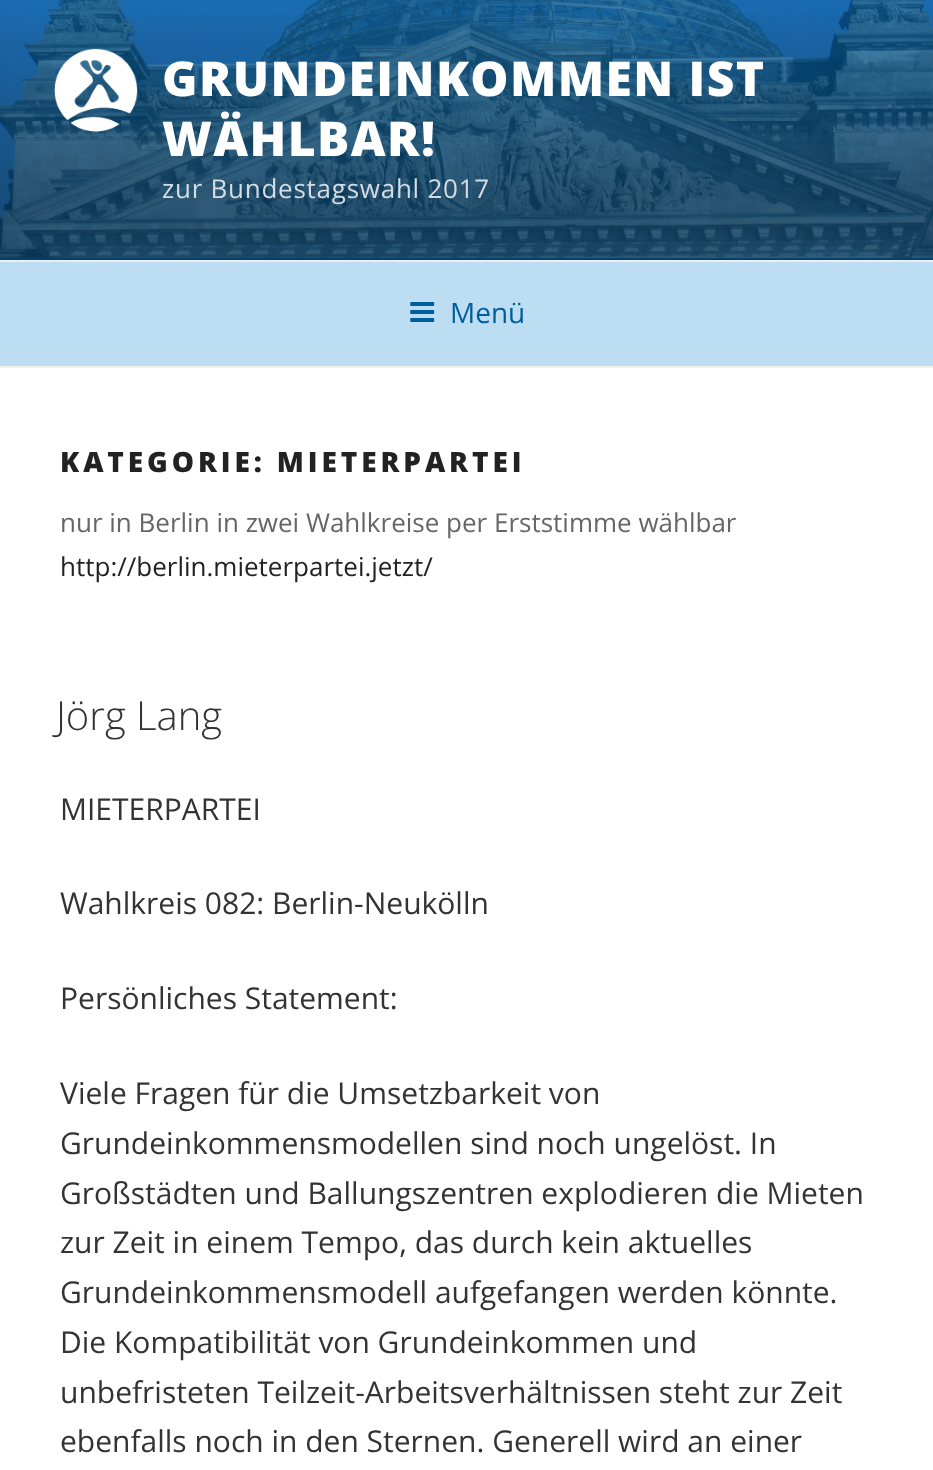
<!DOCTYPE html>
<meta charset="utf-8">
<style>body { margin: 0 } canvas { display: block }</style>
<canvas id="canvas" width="933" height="1470"></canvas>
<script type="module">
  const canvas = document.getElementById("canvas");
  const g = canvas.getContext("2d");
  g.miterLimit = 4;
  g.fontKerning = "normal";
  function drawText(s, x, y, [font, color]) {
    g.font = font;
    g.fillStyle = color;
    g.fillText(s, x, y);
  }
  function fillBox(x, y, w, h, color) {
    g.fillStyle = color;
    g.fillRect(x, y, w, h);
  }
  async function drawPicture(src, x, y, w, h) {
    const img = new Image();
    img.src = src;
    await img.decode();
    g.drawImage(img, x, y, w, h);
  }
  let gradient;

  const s1 = ["800 48px Open Sans", "#FFFFFF"];
  const s2 = ["26px Open Sans", "#D3DCE2"];
  const s3 = ["28px Open Sans", "#005E9B"];
  const s4 = ["800 28px Open Sans", "#222222"];
  const s5 = ["26px Open Sans", "#666666"];
  const s6 = ["26px Open Sans", "#222222"];
  const s7 = ["300 40px Open Sans", "#333333"];
  const s8 = ["30px Open Sans", "#333333"];

  fillBox(0, 0, 933, 1470, "#FFFFFF");
  fillBox(0, 0, 933, 260, "#005E9B");
  await drawPicture("pic1.png", 0, 0, 933, 258);
  gradient = g.createLinearGradient(467, 0, 467, 260);
  gradient.addColorStop(0, "rgba(0, 0, 0, 0)");
  gradient.addColorStop(0.75, "rgba(0, 0, 0, 0.3)");
  gradient.addColorStop(1, "rgba(0, 0, 0, 0.3)");
  g.fillStyle = gradient;
  g.fillRect(0, 14, 933, 246);
  await drawPicture("pic2.png", 54, 48, 84, 84);
  g.letterSpacing = "1.4px";
  drawText("GRUNDEINKOMMEN IST", 162, 96, s1);
  drawText("WÄHLBAR!", 162, 156, s1);
  g.letterSpacing = "0.75px";
  drawText("zur Bundestagswahl 2017", 162, 198, s2);
  fillBox(0, 262, 933, 104, "#BDDDF2");
  fillBox(0, 260, 933, 2, "#EEEEEE");
  fillBox(0, 366, 933, 2, "#EEEEEE");
  await drawPicture("pic3.png", 410, 302, 25, 20);
  g.letterSpacing = "0px";
  drawText("Menü", 450, 323, s3);
  g.letterSpacing = "3.9px";
  drawText("KATEGORIE: MIETERPARTEI", 60, 472, s4);
  g.letterSpacing = "0px";
  drawText("nur in Berlin in zwei Wahlkreise per Erststimme wählbar", 60, 532, s5);
  drawText("http://berlin.mieterpartei.jetzt/", 60, 576, s6);
  drawText("Jörg Lang", 56, 730, s7);
  drawText("MIETERPARTEI", 60, 820, s8);
  drawText("Wahlkreis 082: Berlin-Neukölln", 60, 914, s8);
  drawText("Persönliches Statement:", 60, 1009, s8);
  drawText("Viele Fragen für die Umsetzbarkeit von", 60, 1104, s8);
  drawText("Grundeinkommensmodellen sind noch ungelöst. In", 60, 1154, s8);
  drawText("Großstädten und Ballungszentren explodieren die Mieten", 60, 1204, s8);
  drawText("zur Zeit in einem Tempo, das durch kein aktuelles", 60, 1253, s8);
  drawText("Grundeinkommensmodell aufgefangen werden könnte.", 60, 1303, s8);
  drawText("Die Kompatibilität von Grundeinkommen und", 60, 1353, s8);
  drawText("unbefristeten Teilzeit-Arbeitsverhältnissen steht zur Zeit", 60, 1403, s8);
  drawText("ebenfalls noch in den Sternen. Generell wird an einer", 60, 1452, s8);
</script>
